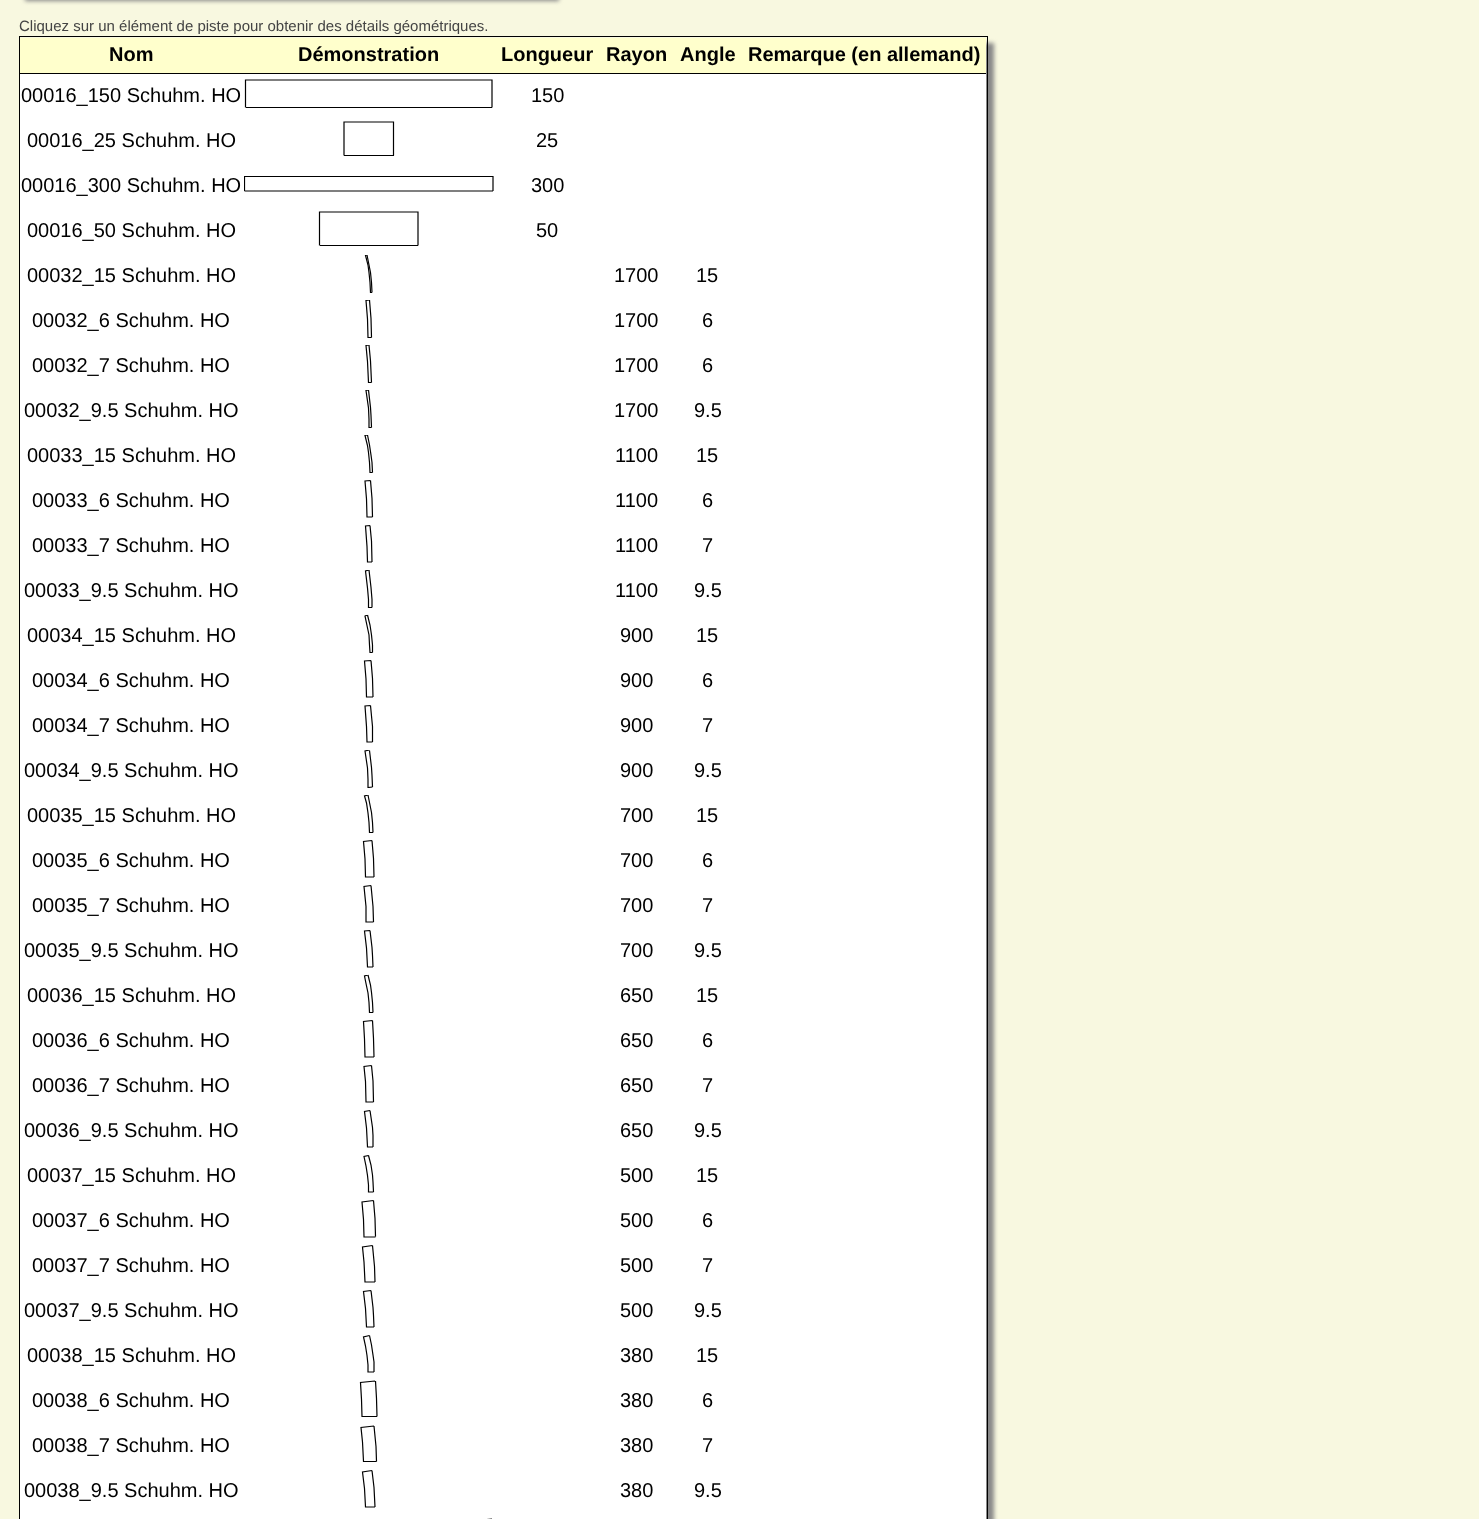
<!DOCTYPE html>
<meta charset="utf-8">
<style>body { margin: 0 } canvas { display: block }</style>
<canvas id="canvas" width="1479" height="1519"></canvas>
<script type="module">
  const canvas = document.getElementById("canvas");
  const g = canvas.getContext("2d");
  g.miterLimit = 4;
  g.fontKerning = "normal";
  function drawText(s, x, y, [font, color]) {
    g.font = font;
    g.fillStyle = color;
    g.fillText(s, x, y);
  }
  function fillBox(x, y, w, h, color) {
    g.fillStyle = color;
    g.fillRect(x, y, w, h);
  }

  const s1 = ["15px Liberation Sans", "#444444"];
  const s2 = ["bold 20px Liberation Sans", "#000000"];
  const s3 = ["20px Liberation Sans", "#000000"];

  fillBox(0, 0, 1479, 1519, "#F8F8E0");
  g.fillStyle = "#888888";
  g.filter = "blur(2px)";
  g.beginPath();
  g.rect(25, -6, 534, 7);
  g.fill();
  g.filter = "none";
  drawText("Cliquez sur un élément de piste pour obtenir des détails géométriques.", 19, 31, s1);
  g.fillStyle = "#888888";
  g.filter = "blur(2px)";
  g.beginPath();
  g.rect(25, 43, 969, 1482);
  g.fill();
  g.filter = "none";
  g.strokeStyle = "#000000";
  g.strokeRect(19.5, 36.5, 968, 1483);
  fillBox(20, 38, 966, 35, "#FFFFCC");
  fillBox(20, 73, 966, 1, "#000000");
  drawText("Nom", 109, 61, s2);
  drawText("Démonstration", 298, 61, s2);
  drawText("Longueur", 501, 61, s2);
  drawText("Rayon", 606, 61, s2);
  drawText("Angle", 680, 61, s2);
  drawText("Remarque (en allemand)", 748, 61, s2);
  fillBox(20, 74, 966, 1445, "#FFFFFF");
  drawText("00016_150 Schuhm. HO", 21, 102, s3);
  fillBox(246, 107, 246, 1, "#000000");
  g.beginPath();
  g.moveTo(245.5, 107.5);
  g.lineTo(245.5, 80);
  g.lineTo(492, 80);
  g.lineTo(492, 107.5);
  g.lineWidth = 1.2;
  g.stroke();
  drawText("150", 531, 102, s3);
  drawText("00016_25 Schuhm. HO", 27, 147, s3);
  fillBox(344, 155, 50, 1, "#000000");
  g.beginPath();
  g.moveTo(344, 155.5);
  g.lineTo(344, 122);
  g.lineTo(393.5, 122);
  g.lineTo(393.5, 155.5);
  g.stroke();
  drawText("25", 536, 147, s3);
  drawText("00016_300 Schuhm. HO", 21, 192, s3);
  g.beginPath();
  g.moveTo(244.5, 191);
  g.lineTo(493, 191);
  g.stroke();
  g.save();
  g.beginPath();
  g.rect(244, 165, 250, 38);
  g.clip();
  g.beginPath();
  g.moveTo(244.5, 191);
  g.lineTo(244.5, 176.5);
  g.lineTo(493, 176.5);
  g.lineTo(493, 191);
  g.stroke();
  g.restore();
  drawText("300", 531, 192, s3);
  drawText("00016_50 Schuhm. HO", 27, 237, s3);
  fillBox(320, 245, 98, 1, "#000000");
  g.beginPath();
  g.moveTo(319.5, 245.5);
  g.lineTo(319.5, 212);
  g.lineTo(418, 212);
  g.lineTo(418, 245.5);
  g.stroke();
  drawText("50", 536, 237, s3);
  drawText("00032_15 Schuhm. HO", 27, 282, s3);
  g.beginPath();
  g.moveTo(372, 292.5);
  g.lineTo(371.5, 282.5);
  g.lineTo(370.5, 272.5);
  g.lineTo(368.5, 262.5);
  g.lineTo(367, 255);
  g.stroke();
  g.save();
  g.beginPath();
  g.rect(244, 255, 250, 38);
  g.clip();
  g.beginPath();
  g.moveTo(372, 292.5);
  g.lineTo(370.5, 292.5);
  g.lineTo(370, 282.5);
  g.lineTo(369, 272.5);
  g.lineTo(368, 265);
  g.lineTo(365.5, 255.5);
  g.lineTo(367, 255);
  g.stroke();
  g.restore();
  drawText("1700", 614, 282, s3);
  drawText("15", 696, 282, s3);
  drawText("00032_6 Schuhm. HO", 32, 327, s3);
  g.beginPath();
  g.moveTo(371.5, 337.5);
  g.lineTo(371, 318.5);
  g.lineTo(369.5, 300);
  g.stroke();
  g.save();
  g.beginPath();
  g.rect(244, 300, 250, 38);
  g.clip();
  g.beginPath();
  g.moveTo(371.5, 337.5);
  g.lineTo(368, 337.5);
  g.lineTo(367.5, 319);
  g.lineTo(366, 300.5);
  g.lineTo(369.5, 300);
  g.stroke();
  g.restore();
  drawText("1700", 614, 327, s3);
  drawText("6", 702, 327, s3);
  drawText("00032_7 Schuhm. HO", 32, 372, s3);
  g.beginPath();
  g.moveTo(371.5, 382.5);
  g.lineTo(370.5, 361);
  g.lineTo(369, 345);
  g.stroke();
  g.save();
  g.beginPath();
  g.rect(244, 345, 250, 38);
  g.clip();
  g.beginPath();
  g.moveTo(371.5, 382.5);
  g.lineTo(368.5, 382.5);
  g.lineTo(367.5, 361.5);
  g.lineTo(366, 345.5);
  g.lineTo(369, 345);
  g.stroke();
  g.restore();
  drawText("1700", 614, 372, s3);
  drawText("6", 702, 372, s3);
  drawText("00032_9.5 Schuhm. HO", 24, 417, s3);
  g.beginPath();
  g.moveTo(371.5, 427.5);
  g.lineTo(371, 415.5);
  g.lineTo(370.5, 407.5);
  g.lineTo(368.5, 390);
  g.stroke();
  g.save();
  g.beginPath();
  g.rect(244, 390, 250, 38);
  g.clip();
  g.beginPath();
  g.moveTo(371.5, 427.5);
  g.lineTo(369, 427.5);
  g.lineTo(369, 419.5);
  g.lineTo(368.5, 408);
  g.lineTo(366, 390.5);
  g.lineTo(368.5, 390);
  g.stroke();
  g.restore();
  drawText("1700", 614, 417, s3);
  drawText("9.5", 694, 417, s3);
  drawText("00033_15 Schuhm. HO", 27, 462, s3);
  g.beginPath();
  g.moveTo(372.5, 472.5);
  g.lineTo(372, 462.5);
  g.lineTo(371, 455);
  g.lineTo(369.5, 445);
  g.lineTo(367.5, 435);
  g.stroke();
  g.save();
  g.beginPath();
  g.rect(244, 435, 250, 38);
  g.clip();
  g.beginPath();
  g.moveTo(372.5, 472.5);
  g.lineTo(370, 472.5);
  g.lineTo(369.5, 462.5);
  g.lineTo(368.5, 452.5);
  g.lineTo(367.5, 445.5);
  g.lineTo(365, 435.5);
  g.lineTo(367.5, 435);
  g.stroke();
  g.restore();
  drawText("1100", 615, 462, s3);
  drawText("15", 696, 462, s3);
  drawText("00033_6 Schuhm. HO", 32, 507, s3);
  g.beginPath();
  g.moveTo(372.5, 517);
  g.lineTo(372, 498.5);
  g.lineTo(370.5, 480.5);
  g.moveTo(372.5, 517);
  g.lineTo(367, 517);
  g.lineTo(366.5, 499);
  g.lineTo(365, 481);
  g.lineTo(370.5, 480.5);
  g.stroke();
  drawText("1100", 615, 507, s3);
  drawText("6", 702, 507, s3);
  drawText("00033_7 Schuhm. HO", 32, 552, s3);
  g.beginPath();
  g.moveTo(372, 562);
  g.lineTo(371.5, 541);
  g.lineTo(370, 525.5);
  g.moveTo(372, 562);
  g.lineTo(367.5, 562);
  g.lineTo(367, 546.5);
  g.lineTo(365.5, 526);
  g.lineTo(370, 525.5);
  g.stroke();
  drawText("1100", 615, 552, s3);
  drawText("7", 702, 552, s3);
  drawText("00033_9.5 Schuhm. HO", 24, 597, s3);
  g.beginPath();
  g.moveTo(372, 607.5);
  g.lineTo(372, 599.5);
  g.lineTo(371, 587.5);
  g.lineTo(369, 570);
  g.stroke();
  g.save();
  g.beginPath();
  g.rect(244, 570, 250, 38);
  g.clip();
  g.beginPath();
  g.moveTo(372, 607.5);
  g.lineTo(368.5, 607.5);
  g.lineTo(368.5, 599.5);
  g.lineTo(367.5, 588);
  g.lineTo(365.5, 571);
  g.lineTo(369, 570);
  g.stroke();
  g.restore();
  drawText("1100", 615, 597, s3);
  drawText("9.5", 694, 597, s3);
  drawText("00034_15 Schuhm. HO", 27, 642, s3);
  g.beginPath();
  g.moveTo(372.5, 652.5);
  g.lineTo(372.5, 645);
  g.lineTo(371.5, 635);
  g.lineTo(370, 625);
  g.lineTo(367.5, 615);
  g.stroke();
  g.save();
  g.beginPath();
  g.rect(244, 615, 250, 38);
  g.clip();
  g.beginPath();
  g.moveTo(372.5, 652.5);
  g.lineTo(370, 652.5);
  g.lineTo(369.5, 645);
  g.lineTo(369, 635);
  g.lineTo(367, 625.5);
  g.lineTo(365, 616);
  g.lineTo(367.5, 615);
  g.stroke();
  g.restore();
  drawText("900", 620, 642, s3);
  drawText("15", 696, 642, s3);
  drawText("00034_6 Schuhm. HO", 32, 687, s3);
  g.beginPath();
  g.moveTo(373, 697);
  g.lineTo(372.5, 678.5);
  g.lineTo(371, 660.5);
  g.moveTo(373, 697);
  g.lineTo(366.5, 697);
  g.lineTo(366, 679);
  g.lineTo(364.5, 661);
  g.lineTo(371, 660.5);
  g.stroke();
  drawText("900", 620, 687, s3);
  drawText("6", 702, 687, s3);
  drawText("00034_7 Schuhm. HO", 32, 732, s3);
  g.beginPath();
  g.moveTo(372.5, 742);
  g.lineTo(372.5, 726.5);
  g.lineTo(370.5, 705.5);
  g.moveTo(372.5, 742);
  g.lineTo(367, 742);
  g.lineTo(366.5, 726.5);
  g.lineTo(365, 706);
  g.lineTo(370.5, 705.5);
  g.stroke();
  drawText("900", 620, 732, s3);
  drawText("7", 702, 732, s3);
  drawText("00034_9.5 Schuhm. HO", 24, 777, s3);
  g.beginPath();
  g.moveTo(372.5, 787);
  g.lineTo(372, 775.5);
  g.lineTo(371.5, 767.5);
  g.lineTo(369.5, 750.5);
  g.stroke();
  g.save();
  g.beginPath();
  g.rect(244, 750, 250, 38);
  g.clip();
  g.beginPath();
  g.moveTo(372.5, 787);
  g.lineTo(368, 787.5);
  g.lineTo(368, 779.5);
  g.lineTo(367.5, 768);
  g.lineTo(365, 751);
  g.lineTo(369.5, 750);
  g.stroke();
  g.restore();
  drawText("900", 620, 777, s3);
  drawText("9.5", 694, 777, s3);
  drawText("00035_15 Schuhm. HO", 27, 822, s3);
  g.beginPath();
  g.moveTo(373, 832.5);
  g.lineTo(372.5, 822.5);
  g.lineTo(371.5, 812.5);
  g.lineTo(370, 805);
  g.lineTo(368, 795);
  g.stroke();
  g.save();
  g.beginPath();
  g.rect(244, 795, 250, 38);
  g.clip();
  g.beginPath();
  g.moveTo(373, 832.5);
  g.lineTo(369.5, 832.5);
  g.lineTo(369, 822.5);
  g.lineTo(368, 813);
  g.lineTo(366.5, 803);
  g.lineTo(364.5, 796);
  g.lineTo(368, 795);
  g.stroke();
  g.restore();
  drawText("700", 620, 822, s3);
  drawText("15", 696, 822, s3);
  drawText("00035_6 Schuhm. HO", 32, 867, s3);
  g.beginPath();
  g.moveTo(374, 877);
  g.lineTo(373.5, 858.5);
  g.lineTo(372, 840.5);
  g.moveTo(374, 877);
  g.lineTo(365.5, 877);
  g.lineTo(365, 859);
  g.lineTo(363.5, 841.5);
  g.lineTo(372, 840.5);
  g.stroke();
  drawText("700", 620, 867, s3);
  drawText("6", 702, 867, s3);
  drawText("00035_7 Schuhm. HO", 32, 912, s3);
  g.beginPath();
  g.moveTo(373.5, 922);
  g.lineTo(373, 906.5);
  g.lineTo(371, 885.5);
  g.moveTo(373.5, 922);
  g.lineTo(366, 922);
  g.lineTo(366, 906.5);
  g.lineTo(364, 886.5);
  g.lineTo(371, 885.5);
  g.stroke();
  drawText("700", 620, 912, s3);
  drawText("7", 702, 912, s3);
  drawText("00035_9.5 Schuhm. HO", 24, 957, s3);
  g.beginPath();
  g.moveTo(373, 967);
  g.lineTo(372.5, 955.5);
  g.lineTo(372, 947.5);
  g.lineTo(370, 930.5);
  g.moveTo(373, 967);
  g.lineTo(367.5, 967);
  g.lineTo(366.5, 948);
  g.lineTo(364.5, 931);
  g.lineTo(370, 930.5);
  g.stroke();
  drawText("700", 620, 957, s3);
  drawText("9.5", 694, 957, s3);
  drawText("00036_15 Schuhm. HO", 27, 1002, s3);
  g.beginPath();
  g.moveTo(373, 1012.5);
  g.lineTo(372.5, 1002.5);
  g.lineTo(371.5, 992.5);
  g.lineTo(370.5, 985);
  g.lineTo(368, 975);
  g.stroke();
  g.save();
  g.beginPath();
  g.rect(244, 975, 250, 38);
  g.clip();
  g.beginPath();
  g.moveTo(373, 1012.5);
  g.lineTo(369.5, 1012.5);
  g.lineTo(369, 1002.5);
  g.lineTo(368, 993);
  g.lineTo(366, 983.5);
  g.lineTo(364.5, 976);
  g.lineTo(368, 975);
  g.stroke();
  g.restore();
  drawText("650", 620, 1002, s3);
  drawText("15", 696, 1002, s3);
  drawText("00036_6 Schuhm. HO", 32, 1047, s3);
  g.beginPath();
  g.moveTo(374, 1057);
  g.lineTo(373.5, 1038.5);
  g.lineTo(372.5, 1020.5);
  g.moveTo(374, 1057);
  g.lineTo(365, 1057);
  g.lineTo(364.5, 1039);
  g.lineTo(363.5, 1021.5);
  g.lineTo(372.5, 1020.5);
  g.stroke();
  drawText("650", 620, 1047, s3);
  drawText("6", 702, 1047, s3);
  drawText("00036_7 Schuhm. HO", 32, 1092, s3);
  g.beginPath();
  g.moveTo(373.5, 1102);
  g.lineTo(373, 1081);
  g.lineTo(371.5, 1065.5);
  g.moveTo(373.5, 1102);
  g.lineTo(366, 1102);
  g.lineTo(365.5, 1081.5);
  g.lineTo(364, 1066.5);
  g.lineTo(371.5, 1065.5);
  g.stroke();
  drawText("650", 620, 1092, s3);
  drawText("7", 702, 1092, s3);
  drawText("00036_9.5 Schuhm. HO", 24, 1137, s3);
  g.beginPath();
  g.moveTo(373, 1147);
  g.lineTo(373, 1135.5);
  g.lineTo(372.5, 1127.5);
  g.lineTo(370, 1110.5);
  g.moveTo(373, 1147);
  g.lineTo(367.5, 1147);
  g.lineTo(366.5, 1128);
  g.lineTo(364.5, 1111.5);
  g.lineTo(370, 1110.5);
  g.stroke();
  drawText("650", 620, 1137, s3);
  drawText("9.5", 694, 1137, s3);
  drawText("00037_15 Schuhm. HO", 27, 1182, s3);
  g.beginPath();
  g.moveTo(373.5, 1192);
  g.lineTo(373, 1182);
  g.lineTo(372.5, 1175);
  g.lineTo(371, 1165);
  g.lineTo(368.5, 1155.5);
  g.moveTo(373.5, 1192);
  g.lineTo(368.5, 1192);
  g.lineTo(368.5, 1185);
  g.lineTo(367.5, 1175.5);
  g.lineTo(366, 1166);
  g.lineTo(364, 1156.5);
  g.lineTo(368.5, 1155.5);
  g.stroke();
  drawText("500", 620, 1182, s3);
  drawText("15", 696, 1182, s3);
  drawText("00037_6 Schuhm. HO", 32, 1227, s3);
  g.beginPath();
  g.moveTo(375.5, 1236.5);
  g.lineTo(375, 1218.5);
  g.lineTo(373.5, 1200.5);
  g.moveTo(375.5, 1237);
  g.lineTo(364, 1237);
  g.lineTo(363.5, 1219.5);
  g.lineTo(362, 1202);
  g.lineTo(373.5, 1200.5);
  g.stroke();
  drawText("500", 620, 1227, s3);
  drawText("6", 702, 1227, s3);
  drawText("00037_7 Schuhm. HO", 32, 1272, s3);
  g.beginPath();
  g.moveTo(375, 1282);
  g.lineTo(374.5, 1266.5);
  g.lineTo(372.5, 1245.5);
  g.moveTo(375, 1282);
  g.lineTo(365, 1282);
  g.lineTo(364, 1262);
  g.lineTo(362.5, 1247);
  g.lineTo(372.5, 1245.5);
  g.stroke();
  drawText("500", 620, 1272, s3);
  drawText("7", 702, 1272, s3);
  drawText("00037_9.5 Schuhm. HO", 24, 1317, s3);
  g.beginPath();
  g.moveTo(374, 1327);
  g.lineTo(373.5, 1315.5);
  g.lineTo(373, 1307.5);
  g.lineTo(371, 1290.5);
  g.moveTo(374, 1327);
  g.lineTo(366.5, 1327);
  g.lineTo(365.5, 1308.5);
  g.lineTo(363.5, 1291.5);
  g.lineTo(371, 1290.5);
  g.stroke();
  drawText("500", 620, 1317, s3);
  drawText("9.5", 694, 1317, s3);
  drawText("00038_15 Schuhm. HO", 27, 1362, s3);
  g.beginPath();
  g.moveTo(374, 1372);
  g.lineTo(374, 1362);
  g.lineTo(373, 1355);
  g.lineTo(371.5, 1345);
  g.lineTo(369.5, 1335.5);
  g.moveTo(374, 1372);
  g.lineTo(368, 1372);
  g.lineTo(368, 1365);
  g.lineTo(367, 1355.5);
  g.lineTo(365.5, 1346);
  g.lineTo(363.5, 1337);
  g.lineTo(369.5, 1335.5);
  g.stroke();
  drawText("380", 620, 1362, s3);
  drawText("15", 696, 1362, s3);
  drawText("00038_6 Schuhm. HO", 32, 1407, s3);
  g.beginPath();
  g.moveTo(377, 1416.5);
  g.lineTo(376.5, 1398.5);
  g.lineTo(375.5, 1381);
  g.moveTo(377, 1416.5);
  g.lineTo(362, 1416.5);
  g.lineTo(361.5, 1399.5);
  g.lineTo(360.5, 1382.5);
  g.lineTo(375, 1381);
  g.stroke();
  drawText("380", 620, 1407, s3);
  drawText("6", 702, 1407, s3);
  drawText("00038_7 Schuhm. HO", 32, 1452, s3);
  g.beginPath();
  g.moveTo(376.5, 1461.5);
  g.lineTo(376, 1446.5);
  g.lineTo(374, 1426);
  g.moveTo(376.5, 1461.5);
  g.lineTo(363.5, 1461.5);
  g.lineTo(362.5, 1442);
  g.lineTo(361, 1427.5);
  g.lineTo(374, 1426);
  g.stroke();
  drawText("380", 620, 1452, s3);
  drawText("7", 702, 1452, s3);
  drawText("00038_9.5 Schuhm. HO", 24, 1497, s3);
  g.beginPath();
  g.moveTo(375, 1507);
  g.lineTo(374, 1487.5);
  g.lineTo(372, 1470.5);
  g.moveTo(375, 1507);
  g.lineTo(365.5, 1507);
  g.lineTo(364.5, 1488.5);
  g.lineTo(362.5, 1472);
  g.lineTo(372, 1470.5);
  g.stroke();
  drawText("380", 620, 1497, s3);
  drawText("9.5", 694, 1497, s3);
  g.beginPath();
  g.moveTo(244.5, 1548.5);
  g.lineTo(244.5, 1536.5);
  g.lineTo(299.5, 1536);
  g.lineTo(354, 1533);
  g.lineTo(409, 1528);
  g.lineTo(492, 1519);
  g.stroke();
</script>
